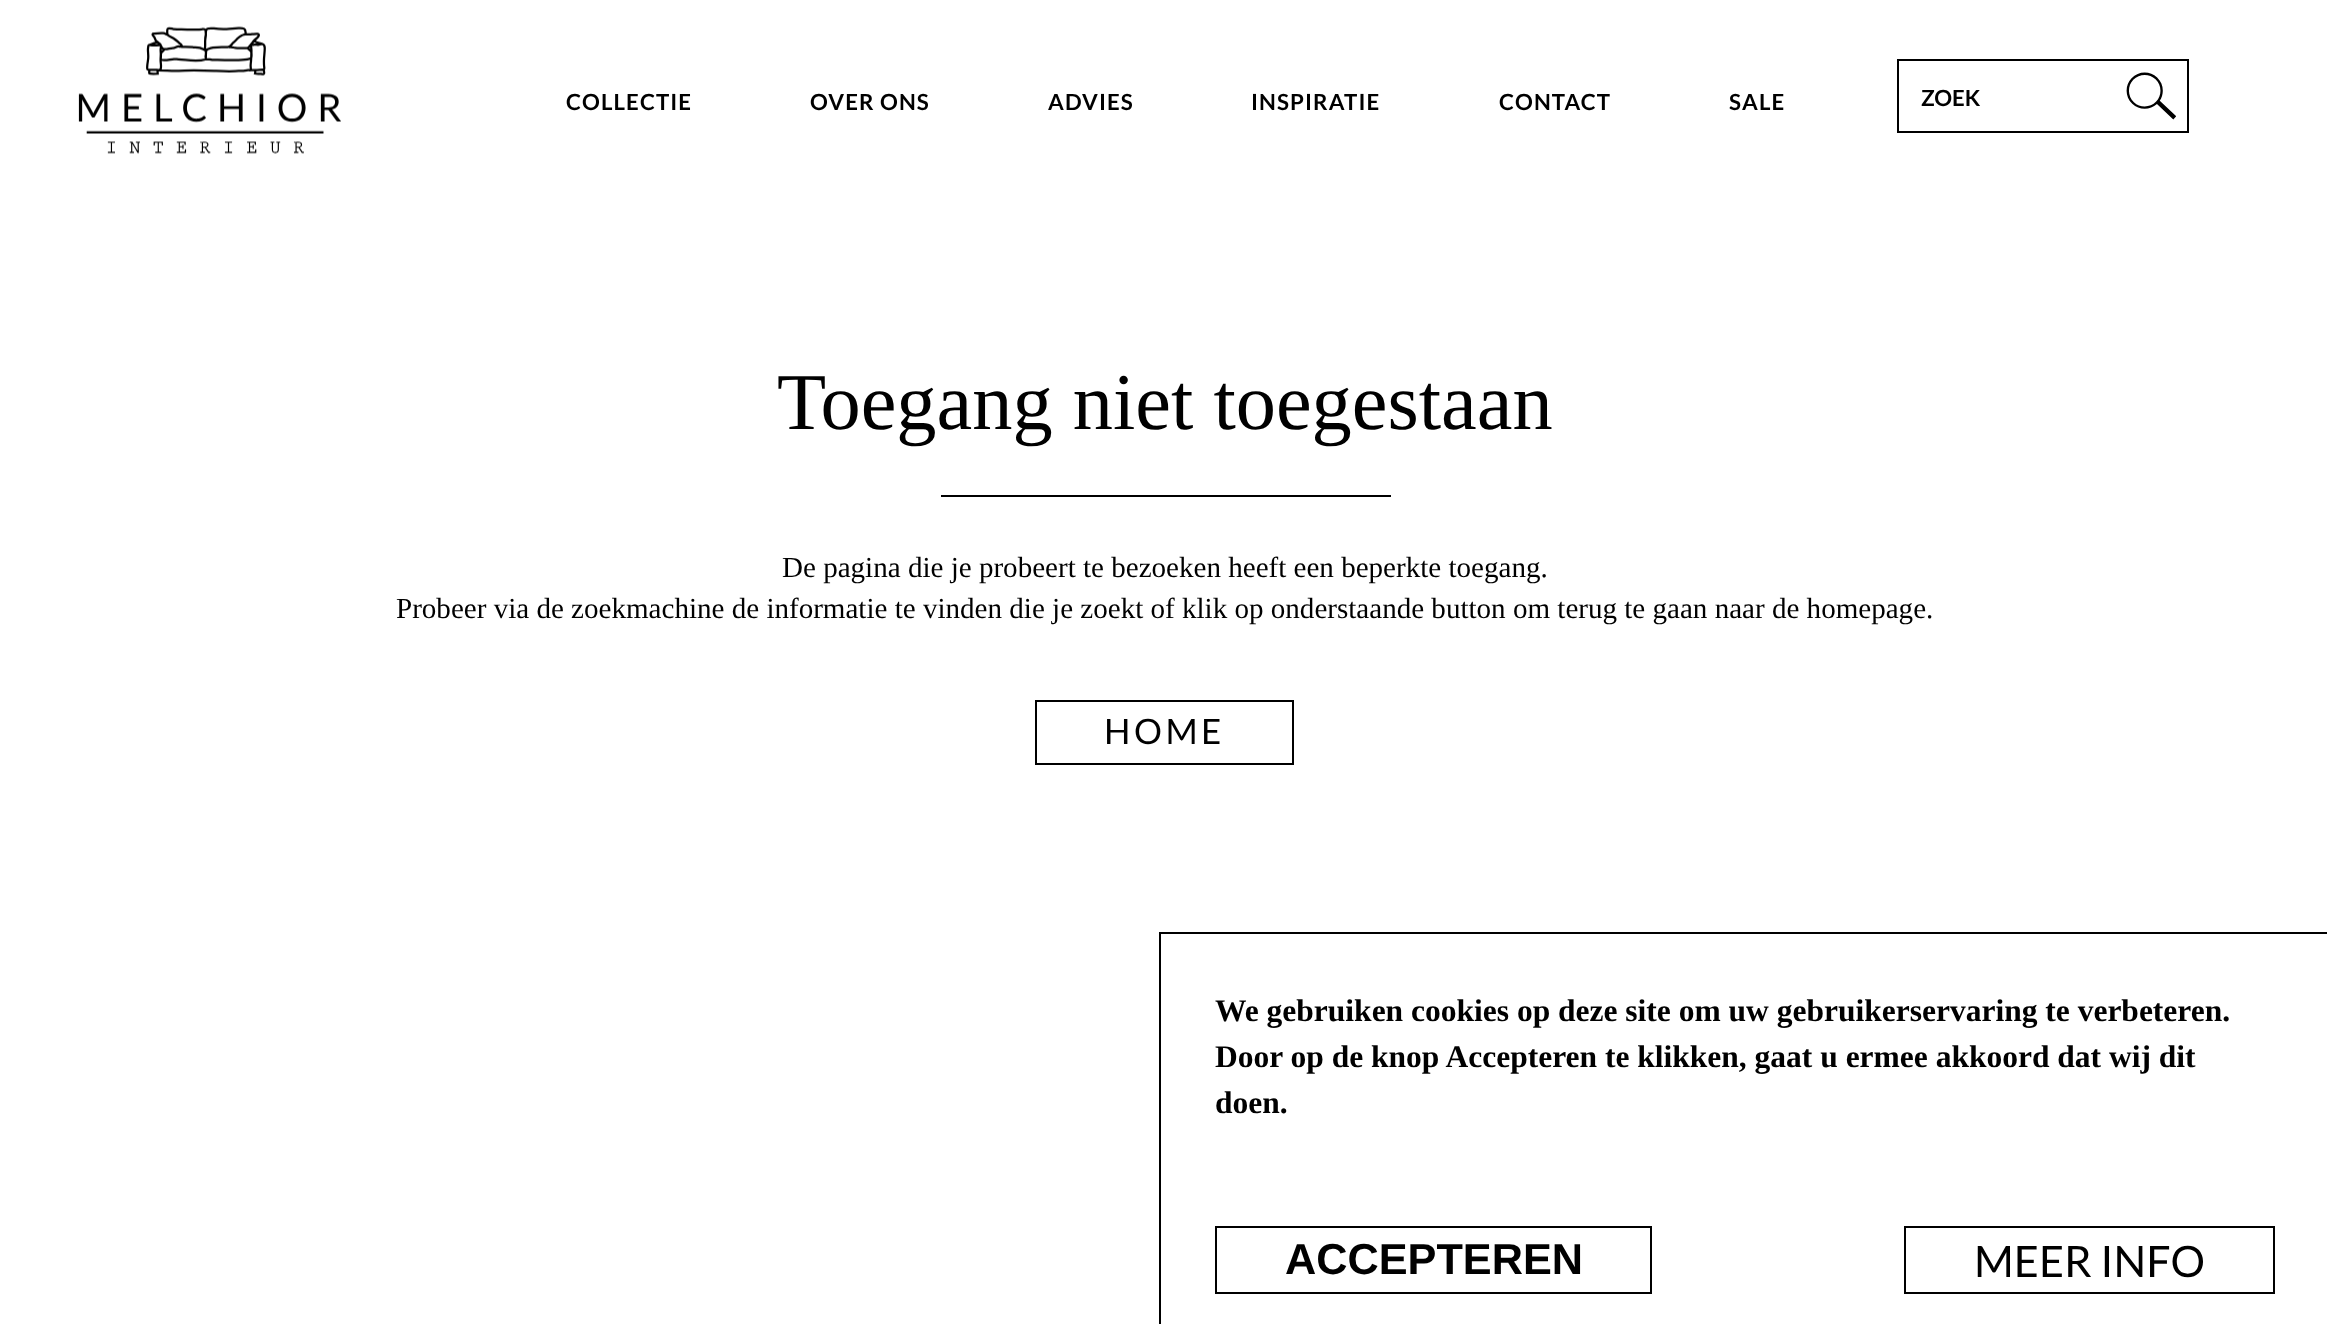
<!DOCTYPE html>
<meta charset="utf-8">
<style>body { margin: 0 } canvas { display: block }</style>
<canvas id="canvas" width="2327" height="1324"></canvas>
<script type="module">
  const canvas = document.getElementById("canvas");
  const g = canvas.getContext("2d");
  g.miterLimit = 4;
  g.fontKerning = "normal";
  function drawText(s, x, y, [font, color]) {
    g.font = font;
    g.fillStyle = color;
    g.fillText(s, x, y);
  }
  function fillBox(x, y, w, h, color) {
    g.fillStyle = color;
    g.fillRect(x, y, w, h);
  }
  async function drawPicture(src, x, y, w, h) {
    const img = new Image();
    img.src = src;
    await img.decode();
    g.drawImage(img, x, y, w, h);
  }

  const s1 = ["bold 22.25px Lato", "#000000"];
  const s2 = ["80.4px Liberation Serif", "#000000"];
  const s3 = ["29.07px Liberation Serif", "#000000"];
  const s4 = ["35px Lato", "#000000"];
  const s5 = ["bold 31.5px Liberation Serif", "#000000"];
  const s6 = ["bold 43.25px Liberation Sans", "#000000"];
  const s7 = ["43.25px Lato", "#000000"];

  fillBox(0, 0, 2327, 1324, "#FFFFFF");
  await drawPicture("pic1.png", 78, 26, 263, 128);
  g.letterSpacing = "1.1px";
  drawText("COLLECTIE", 566, 110, s1);
  drawText("OVER ONS", 810, 110, s1);
  drawText("ADVIES", 1048, 110, s1);
  drawText("INSPIRATIE", 1251, 110, s1);
  drawText("CONTACT", 1499, 110, s1);
  drawText("SALE", 1729, 110, s1);
  g.strokeStyle = "#000000";
  g.lineWidth = 2;
  g.strokeRect(1898, 60, 290, 72);
  g.letterSpacing = "0px";
  drawText("ZOEK", 1921, 106, s1);
  await drawPicture("pic2.png", 2126, 72, 50, 48);
  drawText("Toegang niet toegestaan", 777, 429, s2);
  fillBox(941, 495, 450, 2, "#000000");
  drawText("De pagina die je probeert te bezoeken heeft een beperkte toegang.", 782, 577, s3);
  drawText("Probeer via de zoekmachine de informatie te vinden die je zoekt of klik op onderstaande button om terug te gaan naar de homepage.", 396, 618, s3);
  g.strokeRect(1036, 701, 257, 63);
  g.letterSpacing = "3.5px";
  drawText("HOME", 1104, 744, s4);
  fillBox(1159, 932, 1168, 2, "#000000");
  fillBox(1159, 932, 2, 392, "#000000");
  g.letterSpacing = "0px";
  drawText("We gebruiken cookies op deze site om uw gebruikerservaring te verbeteren.", 1215, 1021, s5);
  drawText("Door op de knop Accepteren te klikken, gaat u ermee akkoord dat wij dit", 1215, 1067, s5);
  drawText("doen.", 1215, 1113, s5);
  g.strokeRect(1216, 1227, 435, 66);
  drawText("ACCEPTEREN", 1285, 1274, s6);
  g.strokeRect(1905, 1227, 369, 66);
  drawText("MEER INFO", 1974, 1277, s7);
</script>
